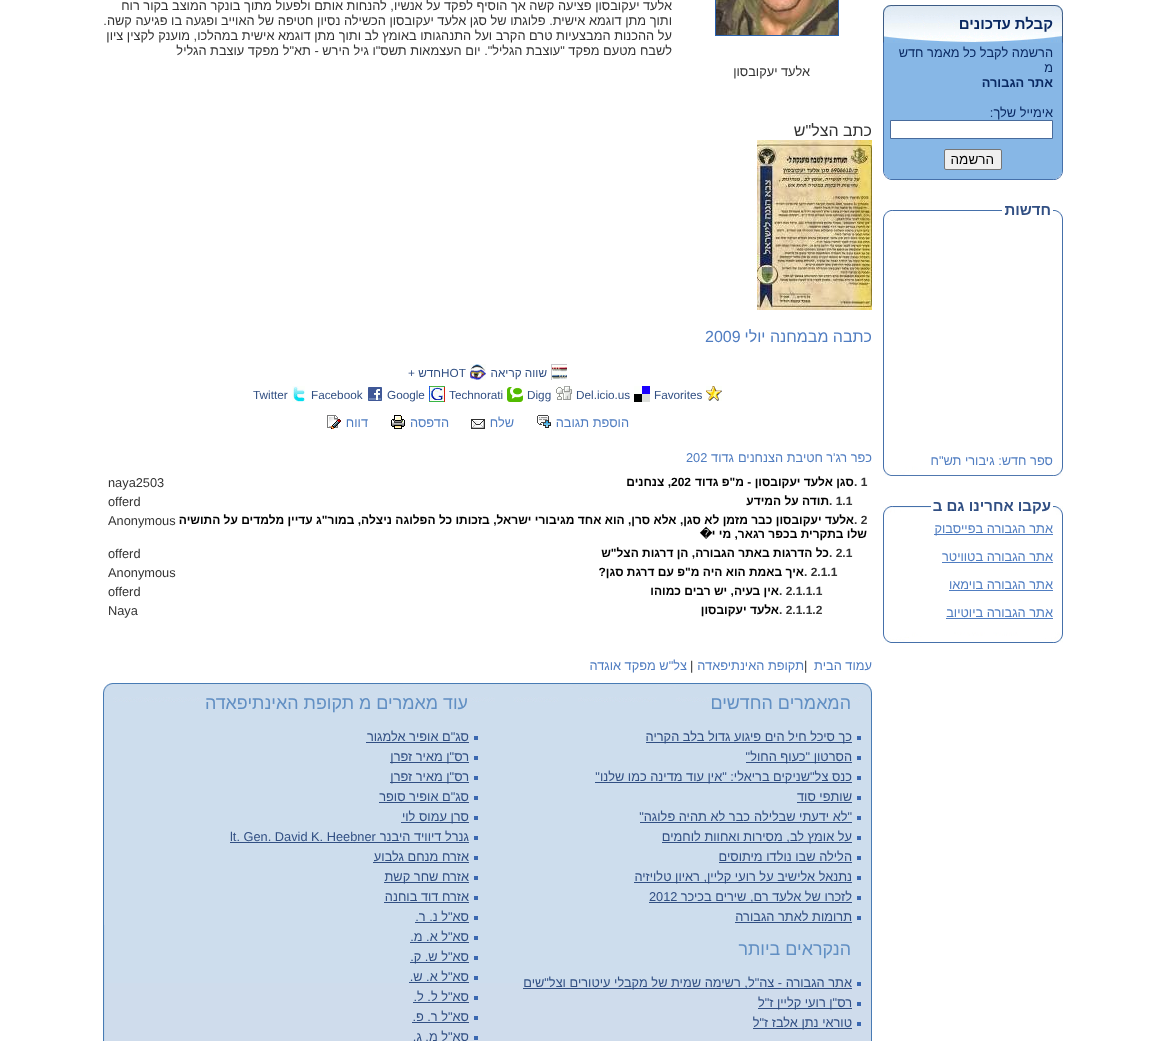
<!DOCTYPE html>
<meta charset="utf-8">
<style>body { margin: 0 } canvas { display: block }</style>
<canvas id="canvas" width="1156" height="1041"></canvas>
<script type="module">
  const canvas = document.getElementById("canvas");
  const g = canvas.getContext("2d");
  g.miterLimit = 4;
  g.fontKerning = "normal";
  function drawText(s, x, y, [font, color]) {
    g.font = font;
    g.fillStyle = color;
    g.fillText(s, x, y);
  }
  function fillBox(x, y, w, h, color) {
    g.fillStyle = color;
    g.fillRect(x, y, w, h);
  }
  async function drawPicture(src, x, y, w, h) {
    const img = new Image();
    img.src = src;
    await img.decode();
    g.drawImage(img, x, y, w, h);
  }

  const s1 = ["bold 15px Liberation Sans", "#0A2962"];
  const s2 = ["12.8px Liberation Sans", "#0A2962"];
  const s3 = ["bold 12.8px Liberation Sans", "#0A2962"];
  const s4 = ["13.5px Liberation Sans", "#000000"];
  const s5 = ["bold 15px Liberation Sans", "#314F83"];
  const s6 = ["12.8px Liberation Sans", "#507DC1"];
  const s7 = ["12.8px Liberation Sans", "#333333"];
  const s8 = ["16px Liberation Sans", "#333333"];
  const s9 = ["16px Liberation Sans", "#507DC1"];
  const s10 = ["11.75px Liberation Sans", "#314F83"];
  const s11 = ["bold 12px Liberation Sans", "#333333"];
  const s12 = ["bold 12px Liberation Sans", "#000000"];
  const s13 = ["bold 12px DejaVu Sans", "#000000"];
  const s14 = ["17.9px Liberation Sans", "#618FC3"];
  const s15 = ["12.8px Liberation Sans", "#314F83"];

  fillBox(0, 0, 1156, 1041, "#FFFFFF");
  await drawPicture("pic1.png", 883, 5, 180, 38);
  g.direction = "rtl";
  drawText("קבלת עדכונים", 1053, 29, s1);
  await drawPicture("pic2.png", 883, 43, 180, 137);
  drawText("הרשמה לקבל כל מאמר חדש", 1053, 57, s2);
  drawText("מ", 1053, 72, s2);
  drawText("אתר הגבורה", 1053, 87, s3);
  drawText("אימייל שלך:", 1053, 117, s2);
  g.fillStyle = "#FFFFFF";
  g.beginPath();
  g.rect(890.5, 120.5, 162, 18);
  g.fill();
  g.strokeStyle = "#486B9C";
  g.stroke();
  g.fillStyle = "#EFEFEF";
  g.beginPath();
  g.roundRect(944.5, 149.5, 57, 20, 1.5);
  g.fill();
  g.strokeStyle = "#767676";
  g.stroke();
  drawText("הרשמה", 994, 164, s4);
  await drawPicture("pic3.png", 883, 210, 180, 9);
  fillBox(1002, 210, 51, 6, "#FFFFFF");
  drawText("חדשות", 1051, 215, s5);
  await drawPicture("pic4.png", 883, 219, 180, 257);
  drawText("ספר חדש: גיבורי תש\"ח", 1053, 465, s6);
  await drawPicture("pic5.png", 883, 506, 180, 9);
  fillBox(931, 506, 122, 6, "#FFFFFF");
  drawText("עקבו אחרינו גם ב", 1051, 511, s5);
  await drawPicture("pic6.png", 883, 515, 180, 128);
  fillBox(934, 534, 119, 1, "#507DC1");
  drawText("אתר הגבורה בפייסבוק", 1053, 533, s6);
  drawText("אתר הגבורה בטוויטר", 1053, 561, s6);
  fillBox(942, 562, 111, 1, "#507DC1");
  drawText("אתר הגבורה בוימאו", 1053, 589, s6);
  fillBox(949, 590, 104, 1, "#507DC1");
  drawText("אתר הגבורה ביוטיוב", 1053, 617, s6);
  fillBox(946, 618, 107, 1, "#507DC1");
  drawText("אלעד יעקובסון פציעה קשה אך הוסיף לפקד על אנשיו, להנחות אותם ולפעול מתוך בונקר המוצב בקור רוח", 672, 10, s7);
  drawText("ותוך מתן דוגמא אישית. פלוגתו של סגן אלעד יעקובסון הכשילה נסיון חטיפה של האוייב ופגעה בו פגיעה קשה.", 672, 25, s7);
  drawText("על ההכנות המבצעיות טרם הקרב ועל התנהגותו באומץ לב ותוך מתן דוגמא אישית במהלכו, מוענק לקצין ציון", 672, 40, s7);
  drawText("לשבח מטעם מפקד \"עוצבת הגליל\". יום העצמאות תשס\"ו גיל הירש - תא\"ל מפקד עוצבת הגליל", 672, 55, s7);
  g.strokeStyle = "#2861AE";
  g.strokeRect(715.5, -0.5, 123, 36);
  await drawPicture("pic7.png", 716, 0, 122, 35);
  drawText("אלעד יעקובסון", 810, 76, s7);
  drawText("כתב הצל\"ש", 872, 136, s8);
  await drawPicture("pic8.png", 757, 140, 115, 170);
  drawText("כתבה מבמחנה יולי", 872, 342, s9);
  g.direction = "ltr";
  drawText("2009", 705, 342, s9);
  await drawPicture("pic9.png", 551, 364, 16, 16);
  g.direction = "rtl";
  drawText("שווה קריאה", 547, 377, s10);
  await drawPicture("pic10.png", 470, 364, 16, 16);
  g.direction = "ltr";
  drawText("HOT", 441, 377, s10);
  g.direction = "rtl";
  drawText("חדש +", 441, 377, s10);
  await drawPicture("pic11.png", 706, 386, 16, 15);
  g.direction = "ltr";
  drawText("Favorites", 654, 399, s10);
  await drawPicture("pic12.png", 634, 386, 16, 16);
  drawText("Del.icio.us", 576, 399, s10);
  await drawPicture("pic13.png", 556, 386, 16, 14);
  drawText("Digg", 527, 399, s10);
  await drawPicture("pic14.png", 507, 387, 16, 15);
  drawText("Technorati", 449, 399, s10);
  await drawPicture("pic15.png", 429, 386, 16, 16);
  drawText("Google", 387, 399, s10);
  await drawPicture("pic16.png", 368, 387, 14, 14);
  drawText("Facebook", 311, 399, s10);
  await drawPicture("pic17.png", 292, 386, 13, 16);
  drawText("Twitter", 253, 399, s10);
  g.direction = "rtl";
  drawText("הוספת תגובה", 629, 427, s6);
  await drawPicture("pic18.png", 537, 415, 14, 13);
  drawText("שלח", 514, 427, s6);
  await drawPicture("pic19.png", 471, 419, 14, 10);
  drawText("הדפסה", 449, 427, s6);
  await drawPicture("pic20.png", 391, 415, 14, 14);
  drawText("דווח", 368, 427, s6);
  await drawPicture("pic21.png", 327, 415, 14, 14);
  drawText("כפר רג'ר", 872, 462, s6);
  drawText("חטיבת הצנחנים", 823, 462, s6);
  drawText("גדוד", 734, 462, s6);
  g.direction = "ltr";
  drawText("202", 686, 462, s6);
  drawText(". 1", 854, 486, s11);
  g.direction = "rtl";
  drawText("סגן אלעד יעקובסון - מ\"פ גדוד", 854, 486, s12);
  g.direction = "ltr";
  drawText("202", 671, 486, s12);
  g.direction = "rtl";
  drawText(", צנחנים", 671, 486, s12);
  g.direction = "ltr";
  drawText("naya2503", 108, 487, s7);
  drawText(". 1.1", 829, 505, s11);
  g.direction = "rtl";
  drawText("תודה על המידע", 829, 505, s12);
  g.direction = "ltr";
  drawText("offerd", 108, 506, s7);
  drawText(". 2", 854, 524, s11);
  g.direction = "rtl";
  drawText("אלעד יעקובסון כבר מזמן לא סגן, אלא סרן, הוא אחד מגיבורי ישראל, בזכותו כל הפלוגה ניצלה, במור\"ג עדיין מלמדים על התושיה", 854, 524, s12);
  drawText("שלו בתקרית בכפר רגאר, מי י", 867, 538, s12);
  drawText("�", 712, 538, s13);
  g.direction = "ltr";
  drawText("Anonymous", 108, 525, s7);
  drawText(". 2.1", 829, 557, s11);
  g.direction = "rtl";
  drawText("כל הדרגות באתר הגבורה, הן דרגות הצל\"ש", 829, 557, s12);
  g.direction = "ltr";
  drawText("offerd", 108, 558, s7);
  drawText(". 2.1.1", 804, 576, s11);
  g.direction = "rtl";
  drawText("איך באמת הוא היה מ\"פ עם דרגת סגן?", 804, 576, s12);
  g.direction = "ltr";
  drawText("Anonymous", 108, 577, s7);
  drawText(". 2.1.1.1", 779, 595, s11);
  g.direction = "rtl";
  drawText("אין בעיה, יש רבים כמוהו", 779, 595, s12);
  g.direction = "ltr";
  drawText("offerd", 108, 596, s7);
  drawText(". 2.1.1.2", 779, 614, s11);
  g.direction = "rtl";
  drawText("אלעד יעקובסון", 779, 614, s12);
  g.direction = "ltr";
  drawText("Naya", 108, 615, s7);
  g.direction = "rtl";
  drawText("עמוד הבית", 872, 670, s6);
  g.direction = "ltr";
  drawText("|", 804, 670, s7);
  g.direction = "rtl";
  drawText("תקופת האינתיפאדה", 804, 670, s6);
  g.direction = "ltr";
  drawText("|", 690, 670, s7);
  g.direction = "rtl";
  drawText("צל\"ש מפקד אוגדה", 687, 670, s6);
  fillBox(105, 983, 766, 58, "#CFDCEC");
  await drawPicture("pic22.png", 103, 683, 418, 300);
  await drawPicture("pic23.png", 521, 683, 351, 300);
  fillBox(871, 693, 1, 348, "#487BB4");
  drawText("המאמרים החדשים", 851, 709, s14);
  fillBox(857, 736, 4, 4, "#3A68B1");
  fillBox(646, 742, 206, 1, "#314F83");
  drawText("כך סיכל חיל הים פיגוע גדול בלב הקריה", 852, 741, s15);
  fillBox(857, 756, 4, 4, "#3A68B1");
  fillBox(746, 762, 106, 1, "#314F83");
  drawText("הסרטון \"כעוף החול\"", 852, 761, s15);
  fillBox(857, 776, 4, 4, "#3A68B1");
  fillBox(595, 782, 257, 1, "#314F83");
  drawText("כנס צל\"שניקים בריאלי: \"אין עוד מדינה כמו שלנו\"", 852, 781, s15);
  fillBox(857, 796, 4, 4, "#3A68B1");
  drawText("שותפי סוד", 852, 801, s15);
  fillBox(797, 802, 55, 1, "#314F83");
  fillBox(857, 816, 4, 4, "#3A68B1");
  drawText("\"לא ידעתי שבלילה", 852, 821, s15);
  fillBox(640, 822, 212, 1, "#314F83");
  drawText("כבר לא תהיה פלוגה\"", 750, 821, s15);
  fillBox(857, 836, 4, 4, "#3A68B1");
  fillBox(662, 842, 190, 1, "#314F83");
  drawText("על אומץ לב, מסירות ואחוות לוחמים", 852, 841, s15);
  fillBox(857, 856, 4, 4, "#3A68B1");
  drawText("הלילה שבו נולדו מיתוסים", 852, 861, s15);
  fillBox(719, 862, 133, 1, "#314F83");
  fillBox(857, 876, 4, 4, "#3A68B1");
  fillBox(634, 882, 218, 1, "#314F83");
  drawText("נתנאל אלישיב על רועי קליין, ראיון טלויזיה", 852, 881, s15);
  fillBox(857, 896, 4, 4, "#3A68B1");
  fillBox(649, 902, 203, 1, "#314F83");
  drawText("לזכרו של אלעד רם, שירים בכיכר", 852, 901, s15);
  g.direction = "ltr";
  drawText("2012", 649, 901, s15);
  fillBox(857, 916, 4, 4, "#3A68B1");
  g.direction = "rtl";
  drawText("תרומות לאתר הגבורה", 852, 921, s15);
  fillBox(735, 922, 117, 1, "#314F83");
  drawText("הנקראים ביותר", 851, 955, s14);
  fillBox(857, 982, 4, 4, "#3A68B1");
  fillBox(523, 988, 329, 1, "#314F83");
  drawText("אתר הגבורה - צה\"ל, רשימה שמית של מקבלי עיטורים וצל\"שים", 852, 987, s15);
  fillBox(857, 1002, 4, 4, "#3A68B1");
  fillBox(758, 1008, 94, 1, "#314F83");
  drawText("רס\"ן רועי קליין ז\"ל", 852, 1007, s15);
  fillBox(857, 1022, 4, 4, "#3A68B1");
  fillBox(753, 1028, 99, 1, "#314F83");
  drawText("טוראי נתן אלבז ז\"ל", 852, 1027, s15);
  await drawPicture("pic24.png", 104, 925, 1, 116);
  fillBox(103, 693, 1, 348, "#487BB4");
  drawText("עוד מאמרים מ תקופת האינתיפאדה", 468, 709, s14);
  fillBox(474, 736, 4, 4, "#3A68B1");
  drawText("סג\"ם אופיר אלמגור", 469, 741, s15);
  fillBox(366, 742, 103, 1, "#314F83");
  fillBox(474, 756, 4, 4, "#3A68B1");
  fillBox(390, 762, 79, 1, "#314F83");
  drawText("רס\"ן מאיר זפרן", 469, 761, s15);
  fillBox(474, 776, 4, 4, "#3A68B1");
  fillBox(390, 782, 79, 1, "#314F83");
  drawText("רס\"ן מאיר זפרן", 469, 781, s15);
  fillBox(474, 796, 4, 4, "#3A68B1");
  drawText("סג\"ם אופיר סופר", 469, 801, s15);
  fillBox(379, 802, 90, 1, "#314F83");
  fillBox(474, 816, 4, 4, "#3A68B1");
  fillBox(401, 822, 68, 1, "#314F83");
  drawText("סרן עמוס לוי", 469, 821, s15);
  fillBox(474, 836, 4, 4, "#3A68B1");
  drawText("גנרל דיוויד היבנר", 469, 841, s15);
  g.direction = "ltr";
  drawText("lt. Gen. David K. Heebner", 230, 841, s15);
  fillBox(230, 842, 239, 1, "#314F83");
  fillBox(474, 856, 4, 4, "#3A68B1");
  g.direction = "rtl";
  drawText("אזרח מנחם גלבוע", 469, 861, s15);
  fillBox(373, 862, 96, 1, "#314F83");
  fillBox(474, 876, 4, 4, "#3A68B1");
  fillBox(384, 882, 85, 1, "#314F83");
  drawText("אזרח שחר קשת", 469, 881, s15);
  fillBox(474, 896, 4, 4, "#3A68B1");
  drawText("אזרח דוד בוחנה", 469, 901, s15);
  fillBox(384, 902, 85, 1, "#314F83");
  fillBox(474, 916, 4, 4, "#3A68B1");
  drawText("סא\"ל נ. ר.", 469, 921, s15);
  fillBox(415, 922, 54, 1, "#314F83");
  fillBox(474, 936, 4, 4, "#3A68B1");
  drawText("סא\"ל א. מ.", 469, 941, s15);
  fillBox(410, 942, 59, 1, "#314F83");
  fillBox(474, 956, 4, 4, "#3A68B1");
  fillBox(410, 962, 59, 1, "#314F83");
  drawText("סא\"ל ש. ק.", 469, 961, s15);
  fillBox(474, 976, 4, 4, "#3A68B1");
  drawText("סא\"ל א. ש.", 469, 981, s15);
  fillBox(409, 982, 60, 1, "#314F83");
  fillBox(474, 996, 4, 4, "#3A68B1");
  drawText("סא\"ל ל. ל.", 469, 1001, s15);
  fillBox(413, 1002, 56, 1, "#314F83");
  fillBox(474, 1016, 4, 4, "#3A68B1");
  drawText("סא\"ל ר. פ.", 469, 1021, s15);
  fillBox(412, 1022, 57, 1, "#314F83");
  fillBox(474, 1036, 4, 4, "#3A68B1");
  drawText("סא\"ל מ. ג.", 469, 1041, s15);
</script>
